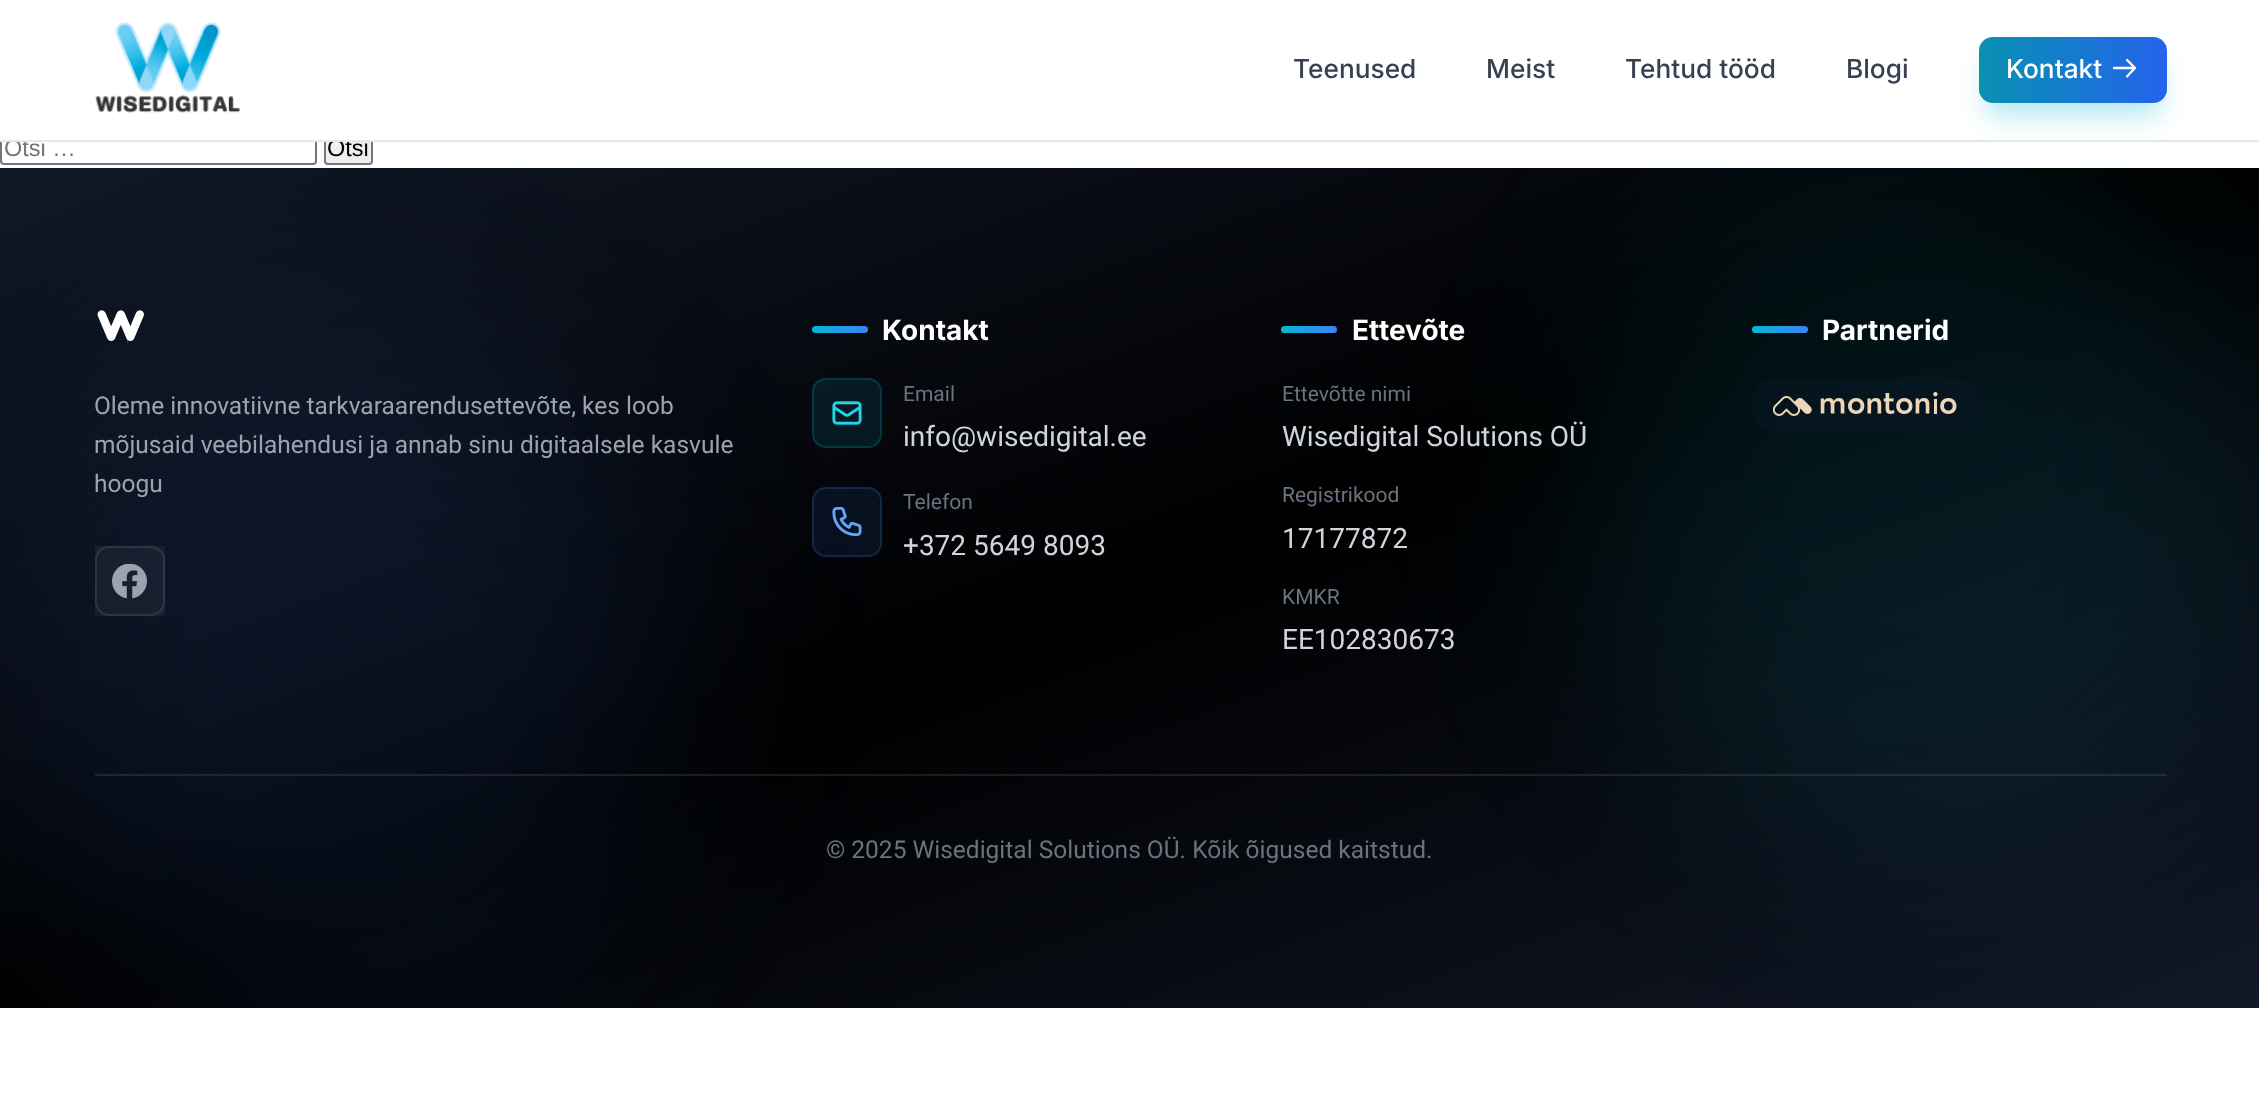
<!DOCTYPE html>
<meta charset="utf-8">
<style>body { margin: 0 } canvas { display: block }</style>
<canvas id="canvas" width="2259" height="1120"></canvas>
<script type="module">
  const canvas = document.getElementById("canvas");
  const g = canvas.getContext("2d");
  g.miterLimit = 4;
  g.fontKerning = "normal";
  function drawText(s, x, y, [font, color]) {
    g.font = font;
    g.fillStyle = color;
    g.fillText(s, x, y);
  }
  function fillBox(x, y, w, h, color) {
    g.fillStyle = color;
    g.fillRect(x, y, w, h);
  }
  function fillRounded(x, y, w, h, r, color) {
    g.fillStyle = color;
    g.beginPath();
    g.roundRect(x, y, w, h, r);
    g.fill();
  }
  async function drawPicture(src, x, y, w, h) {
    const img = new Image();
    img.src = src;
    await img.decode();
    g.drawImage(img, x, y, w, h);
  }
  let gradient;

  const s1 = ["23.5px Liberation Sans", "#757575"];
  const s2 = ["23.5px Liberation Sans", "#000000"];
  const s3 = ["500 26.25px Inter", "#374151"];
  const s4 = ["500 26.25px Inter", "#FFFFFF"];
  const s5 = ["24.5px Roboto", "#9CA3AF"];
  const s6 = ["bold 28px Inter", "#FFFFFF"];
  const s7 = ["21px Roboto", "#6B7280"];
  const s8 = ["28px Roboto", "#D1D5DB"];
  const s9 = ["24.5px Roboto", "#6B7280"];

  fillBox(0, 0, 2259, 1120, "#FFFFFF");
  g.beginPath();
  g.roundRect(1, 132, 315, 32, 3);
  g.strokeStyle = "#767676";
  g.lineWidth = 2;
  g.stroke();
  drawText("Otsi …", 4, 156, s1);
  g.fillStyle = "#EFEFEF";
  g.beginPath();
  g.roundRect(325, 132, 47, 32, 3);
  g.fill();
  g.stroke();
  drawText("Otsi", 327, 156, s2);
  gradient = g.createLinearGradient(855, -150, 1404, 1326);
  gradient.addColorStop(0, "#111827");
  gradient.addColorStop(0.5, "#000000");
  gradient.addColorStop(1, "#111827");
  g.fillStyle = gradient;
  g.fillRect(0, 168, 2259, 840);
  g.save();
  g.beginPath();
  g.rect(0, 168, 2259, 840);
  g.clip();
  g.fillStyle = "rgba(59, 130, 246, 0.1)";
  g.filter = "blur(105px)";
  g.beginPath();
  g.roundRect(0, 336, 672, 672, 336);
  g.fill();
  g.filter = "none";
  g.restore();
  fillBox(0, 131, 373, 9, "#FFFFFF");
  g.save();
  g.beginPath();
  g.rect(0, 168, 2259, 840);
  g.clip();
  g.fillStyle = "rgba(6, 182, 212, 0.1)";
  g.filter = "blur(105px)";
  g.beginPath();
  g.roundRect(1587, 168, 672, 672, 336);
  g.fill();
  g.filter = "none";
  g.restore();
  fillBox(0, 140, 2259, 2, "#E5E7EB");
  await drawPicture("pic1.png", 95, 22, 145, 91);
  drawText("Teenused", 1293, 78, s3);
  drawText("Meist", 1486, 78, s3);
  drawText("Tehtud tööd", 1625, 78, s3);
  drawText("Blogi", 1846, 78, s3);
  g.fillStyle = "rgba(6, 182, 212, 0.3)";
  g.filter = "blur(13px)";
  g.beginPath();
  g.roundRect(1985, 60, 176, 56, 9);
  g.fill();
  g.filter = "none";
  gradient = g.createLinearGradient(1979, 70, 2167, 70);
  gradient.addColorStop(0, "#0891B2");
  gradient.addColorStop(1, "#2563EB");
  g.fillStyle = gradient;
  g.beginPath();
  g.roundRect(1979, 37, 188, 66, 14);
  g.fill();
  drawText("Kontakt", 2006, 78, s4);
  g.beginPath();
  g.moveTo(2127, 60);
  g.lineTo(2135, 68);
  g.moveTo(2135, 68);
  g.lineTo(2127, 76.5);
  g.moveTo(2135, 68);
  g.lineTo(2114, 68);
  g.strokeStyle = "#FFFFFF";
  g.lineWidth = 2.3;
  g.lineCap = "round";
  g.lineJoin = "round";
  g.stroke();
  await drawPicture("pic2.png", 97, 310, 47, 33);
  drawText("Oleme innovatiivne tarkvaraarendusettevõte, kes loob", 94, 414, s5);
  drawText("mõjusaid veebilahendusi ja annab sinu digitaalsele kasvule", 94, 453, s5);
  drawText("hoogu", 94, 492, s5);
  fillBox(95, 546, 70, 70, "rgba(255, 255, 255, 0.05)");
  g.beginPath();
  g.roundRect(96, 547, 68, 68, 13);
  g.strokeStyle = "rgba(255, 255, 255, 0.1)";
  g.lineWidth = 2;
  g.lineJoin = "miter";
  g.stroke();
  await drawPicture("pic3.png", 112, 564, 35, 35);
  gradient = g.createLinearGradient(812, 329, 868, 329);
  gradient.addColorStop(0, "#06B6D4");
  gradient.addColorStop(1, "#3B82F6");
  g.fillStyle = gradient;
  g.beginPath();
  g.roundRect(812, 326, 56, 7, 3.5);
  g.fill();
  drawText("Kontakt", 882, 340, s6);
  fillRounded(812, 378, 70, 70, 14, "rgba(6, 182, 212, 0.1)");
  g.beginPath();
  g.roundRect(813, 379, 68, 68, 13);
  g.strokeStyle = "rgba(6, 182, 212, 0.2)";
  g.stroke();
  await drawPicture("pic4.png", 832, 401, 30, 24);
  drawText("Email", 903, 401, s7);
  drawText("info@wisedigital.ee", 903, 446, s8);
  fillRounded(812, 487, 70, 70, 14, "rgba(59, 130, 246, 0.1)");
  g.beginPath();
  g.roundRect(813, 488, 68, 68, 13);
  g.strokeStyle = "rgba(59, 130, 246, 0.2)";
  g.stroke();
  await drawPicture("pic5.png", 832, 506, 30, 31);
  drawText("Telefon", 903, 509, s7);
  drawText("+372 5649 8093", 903, 555, s8);
  gradient = g.createLinearGradient(1281, 329, 1337, 329);
  gradient.addColorStop(0, "#06B6D4");
  gradient.addColorStop(1, "#3B82F6");
  g.fillStyle = gradient;
  g.beginPath();
  g.roundRect(1281, 326, 56, 7, 3.5);
  g.fill();
  drawText("Ettevõte", 1352, 340, s6);
  drawText("Ettevõtte nimi", 1282, 401, s7);
  drawText("Wisedigital Solutions OÜ", 1282, 446, s8);
  drawText("Registrikood", 1282, 502, s7);
  drawText("17177872", 1282, 548, s8);
  drawText("KMKR", 1282, 604, s7);
  drawText("EE102830673", 1282, 649, s8);
  gradient = g.createLinearGradient(1752, 329, 1808, 329);
  gradient.addColorStop(0, "#06B6D4");
  gradient.addColorStop(1, "#3B82F6");
  g.fillStyle = gradient;
  g.beginPath();
  g.roundRect(1752, 326, 56, 7, 3.5);
  g.fill();
  drawText("Partnerid", 1822, 340, s6);
  fillRounded(1752, 378, 226, 53, 21, "rgba(15, 23, 42, 0.35)");
  await drawPicture("pic6.png", 1773, 392, 184, 24);
  fillBox(95, 774, 2072, 2, "rgba(255, 255, 255, 0.1)");
  drawText("© 2025 Wisedigital Solutions OÜ. Kõik õigused kaitstud.", 826, 858, s9);
</script>
